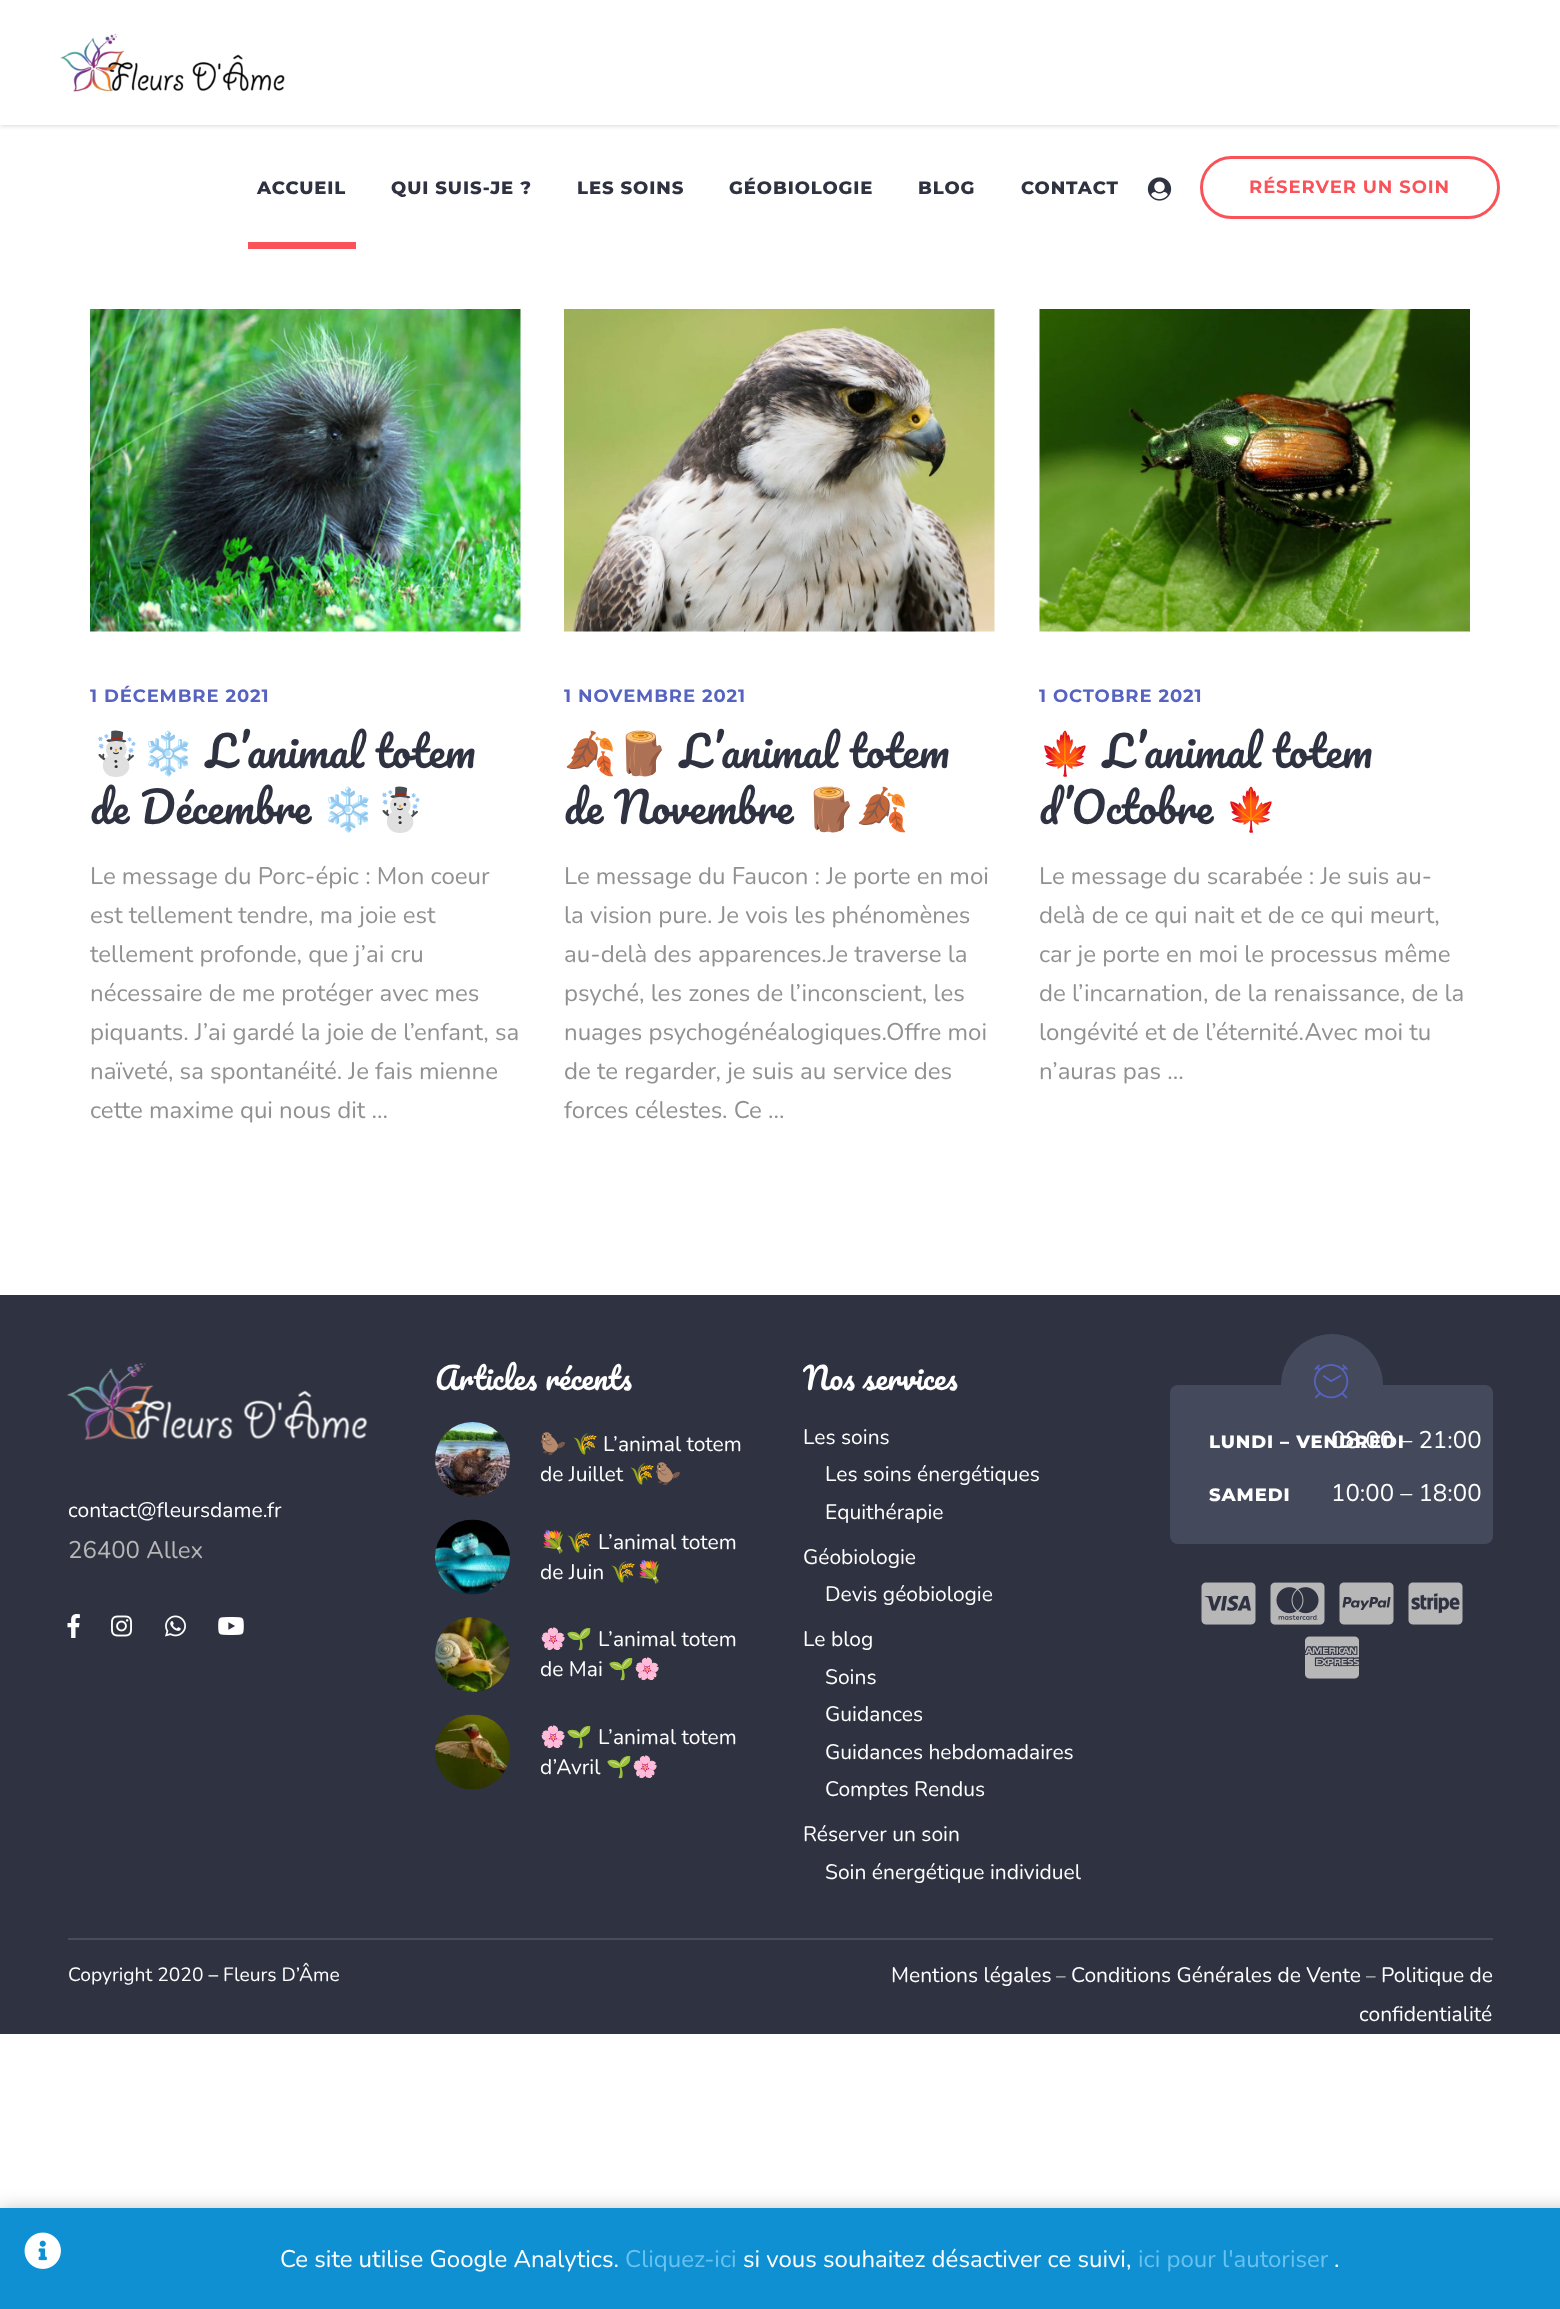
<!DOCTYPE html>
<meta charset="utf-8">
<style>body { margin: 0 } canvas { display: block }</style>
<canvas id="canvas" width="1560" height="2309"></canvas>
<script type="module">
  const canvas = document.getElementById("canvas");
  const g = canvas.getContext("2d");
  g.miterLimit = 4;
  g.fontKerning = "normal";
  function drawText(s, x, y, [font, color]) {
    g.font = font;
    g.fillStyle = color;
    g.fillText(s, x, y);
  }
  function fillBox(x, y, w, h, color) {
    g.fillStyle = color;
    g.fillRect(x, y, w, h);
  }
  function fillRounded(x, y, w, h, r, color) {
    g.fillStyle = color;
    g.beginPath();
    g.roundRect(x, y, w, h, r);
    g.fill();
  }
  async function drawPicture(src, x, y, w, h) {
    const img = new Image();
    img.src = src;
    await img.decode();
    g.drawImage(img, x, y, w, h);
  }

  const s1 = ["800 18px Montserrat", "#2F3241"];
  const s2 = ["bold 18px Montserrat", "#F95259"];
  const s3 = ["bold 18px Montserrat", "#5663C1"];
  const s4 = ["42px Noto Color Emoji", "#2F3241"];
  const s5 = ["42px Pacifico", "#2F3241"];
  const s6 = ["24px Nunito", "#919191"];
  const s7 = ["30px Pacifico", "#FFFFFF"];
  const s8 = ["21px Noto Color Emoji", "#FFFFFF"];
  const s9 = ["21px Nunito", "#FFFFFF"];
  const s10 = ["800 18px Montserrat", "#FFFFFF"];
  const s11 = ["24px Nunito", "#FFFFFF"];
  const s12 = ["24px Nunito", "#B7B7B7"];
  const s13 = ["19.25px Nunito", "#FFFFFF"];
  const s14 = ["19.25px Nunito", "#B7B7B7"];
  const s15 = ["24px Nunito", "#67C2F0"];

  fillBox(0, 0, 1560, 2309, "#FFFFFF");
  g.fillStyle = "rgba(0, 0, 0, 0.15)";
  g.filter = "blur(2px)";
  g.beginPath();
  g.rect(0, 2, 1560, 124);
  g.fill();
  g.filter = "none";
  fillBox(0, 0, 1560, 125, "#FFFFFF");
  await drawPicture("pic1.png", 60, 34, 225, 58);
  g.letterSpacing = "0.9px";
  drawText("ACCUEIL", 257, 194, s1);
  drawText("QUI SUIS-JE ?", 391, 194, s1);
  drawText("LES SOINS", 577, 194, s1);
  drawText("GÉOBIOLOGIE", 729, 194, s1);
  drawText("BLOG", 918, 194, s1);
  drawText("CONTACT", 1021, 194, s1);
  fillBox(248, 242, 108, 7, "#F95259");
  await drawPicture("pic2.png", 1147, 177, 25, 24);
  g.beginPath();
  g.roundRect(1201.5, 157.5, 297, 60, 30);
  g.strokeStyle = "#F95259";
  g.lineWidth = 3;
  g.stroke();
  drawText("RÉSERVER UN SOIN", 1249, 193, s2);
  await drawPicture("pic3.png", 90, 309, 431, 323);
  drawText("1 DÉCEMBRE 2021", 90, 702, s3);
  g.letterSpacing = "0px";
  drawText("☃️❄️", 90, 768, s4);
  drawText("L’animal totem", 206, 768, s5);
  drawText("de Décembre", 90, 824, s5);
  drawText("❄️☃️", 322, 824, s4);
  drawText("Le message du Porc-épic : Mon coeur", 90, 884, s6);
  drawText("est tellement tendre, ma joie est", 90, 923, s6);
  drawText("tellement profonde, que j’ai cru", 90, 962, s6);
  drawText("nécessaire de me protéger avec mes", 90, 1001, s6);
  drawText("piquants. J’ai gardé la joie de l’enfant, sa", 90, 1040, s6);
  drawText("naïveté, sa spontanéité. Je fais mienne", 90, 1079, s6);
  drawText("cette maxime qui nous dit ...", 90, 1118, s6);
  await drawPicture("pic4.png", 564, 309, 431, 323);
  g.letterSpacing = "0.9px";
  drawText("1 NOVEMBRE 2021", 564, 702, s3);
  g.letterSpacing = "0px";
  drawText("🍂🪵", 564, 768, s4);
  drawText("L’animal totem", 680, 768, s5);
  drawText("de Novembre", 564, 824, s5);
  drawText("🪵🍂", 804, 824, s4);
  drawText("Le message du Faucon : Je porte en moi", 564, 884, s6);
  drawText("la vision pure. Je vois les phénomènes", 564, 923, s6);
  drawText("au-delà des apparences.Je traverse la", 564, 962, s6);
  drawText("psyché, les zones de l’inconscient, les", 564, 1001, s6);
  drawText("nuages psychogénéalogiques.Offre moi", 564, 1040, s6);
  drawText("de te regarder, je suis au service des", 564, 1079, s6);
  drawText("forces célestes. Ce ...", 564, 1118, s6);
  await drawPicture("pic5.png", 1039, 309, 431, 323);
  g.letterSpacing = "0.9px";
  drawText("1 OCTOBRE 2021", 1039, 702, s3);
  g.letterSpacing = "0px";
  drawText("🍁", 1039, 768, s4);
  drawText("L’animal totem", 1103, 768, s5);
  drawText("d’Octobre", 1039, 824, s5);
  drawText("🍁", 1225, 824, s4);
  drawText("Le message du scarabée : Je suis au-", 1039, 884, s6);
  drawText("delà de ce qui nait et de ce qui meurt,", 1039, 923, s6);
  drawText("car je porte en moi le processus même", 1039, 962, s6);
  drawText("de l’incarnation, de la renaissance, de la", 1039, 1001, s6);
  drawText("longévité et de l’éternité.Avec moi tu", 1039, 1040, s6);
  drawText("n’auras pas ...", 1039, 1079, s6);
  fillBox(0, 1295, 1560, 739, "#2F3241");
  drawText("Articles récents", 435, 1390, s7);
  await drawPicture("pic6.png", 435, 1422, 75, 75);
  drawText("🦫", 540, 1451, s8);
  drawText("🌾", 572, 1451, s8);
  drawText("L’animal totem", 603, 1451, s9);
  drawText("de Juillet", 540, 1481, s9);
  drawText("🌾🦫", 629, 1481, s8);
  await drawPicture("pic7.png", 435, 1519, 75, 76);
  drawText("💐🌾", 540, 1549, s8);
  drawText("L’animal totem", 598, 1549, s9);
  drawText("de Juin", 540, 1579, s9);
  drawText("🌾💐", 610, 1579, s8);
  await drawPicture("pic8.png", 435, 1617, 75, 75);
  drawText("🌸🌱", 540, 1646, s8);
  drawText("L’animal totem", 598, 1646, s9);
  drawText("de Mai", 540, 1676, s9);
  drawText("🌱🌸", 608, 1676, s8);
  await drawPicture("pic9.png", 435, 1714, 75, 76);
  drawText("🌸🌱", 540, 1744, s8);
  drawText("L’animal totem", 598, 1744, s9);
  drawText("d’Avril", 540, 1774, s9);
  drawText("🌱🌸", 606, 1774, s8);
  drawText("Nos services", 803, 1390, s7);
  drawText("Les soins", 803, 1444, s9);
  drawText("Les soins énergétiques", 825, 1481, s9);
  drawText("Equithérapie", 825, 1519, s9);
  drawText("Géobiologie", 803, 1564, s9);
  drawText("Devis géobiologie", 825, 1601, s9);
  drawText("Le blog", 803, 1646, s9);
  drawText("Soins", 825, 1684, s9);
  drawText("Guidances", 825, 1721, s9);
  drawText("Guidances hebdomadaires", 825, 1759, s9);
  drawText("Comptes Rendus", 825, 1796, s9);
  drawText("Réserver un soin", 803, 1841, s9);
  drawText("Soin énergétique individuel", 825, 1879, s9);
  fillRounded(1170, 1385, 323, 159, 8, "#44495C");
  g.beginPath();
  g.arc(1332, 1385, 51, 0, Math.PI * 2);
  g.fill();
  await drawPicture("pic10.png", 1314, 1364, 35, 35);
  g.letterSpacing = "0.9px";
  drawText("LUNDI – VENDREDI", 1209, 1448, s10);
  g.letterSpacing = "0px";
  drawText("08:00 – 21:00", 1331, 1448, s11);
  g.letterSpacing = "0.9px";
  drawText("SAMEDI", 1209, 1501, s10);
  g.letterSpacing = "0px";
  drawText("10:00 – 18:00", 1331, 1501, s11);
  await drawPicture("pic11.png", 1201, 1582, 55, 43);
  await drawPicture("pic12.png", 1270, 1582, 55, 43);
  await drawPicture("pic13.png", 1339, 1582, 55, 43);
  await drawPicture("pic14.png", 1408, 1582, 55, 43);
  await drawPicture("pic15.png", 1305, 1636, 54, 43);
  await drawPicture("pic16.png", 67, 1363, 301, 77);
  drawText("contact@fleursdame.fr", 68, 1517, s9);
  drawText("26400 Allex", 68, 1558, s12);
  await drawPicture("pic17.png", 67, 1614, 13, 24);
  await drawPicture("pic18.png", 111, 1615, 21, 22);
  await drawPicture("pic19.png", 165, 1615, 21, 22);
  await drawPicture("pic20.png", 218, 1617, 26, 18);
  fillBox(68, 1938, 1425, 2, "#4A4C59");
  drawText("Copyright 2020 – Fleurs D’Âme", 68, 1981, s13);
  drawText("Mentions légales", 891, 1982, s9);
  drawText("–", 1056, 1982, s14);
  drawText("Conditions Générales de Vente", 1071, 1982, s9);
  drawText("–", 1366, 1982, s14);
  drawText("Politique de", 1381, 1982, s9);
  drawText("confidentialité", 1359, 2021, s9);
  g.fillStyle = "rgba(0, 0, 0, 0.4)";
  g.filter = "blur(11px)";
  g.beginPath();
  g.rect(0, 2214, 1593, 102);
  g.fill();
  g.filter = "none";
  fillBox(0, 2208, 1560, 101, "#0E90D2");
  await drawPicture("pic21.png", 24, 2232, 37, 37);
  drawText("Ce site utilise Google Analytics.", 280, 2267, s11);
  drawText("Cliquez-ici", 625, 2267, s15);
  drawText("si vous souhaitez désactiver ce suivi,", 743, 2267, s11);
  drawText("ici pour l'autoriser", 1138, 2267, s15);
  drawText(".", 1334, 2267, s11);
</script>
